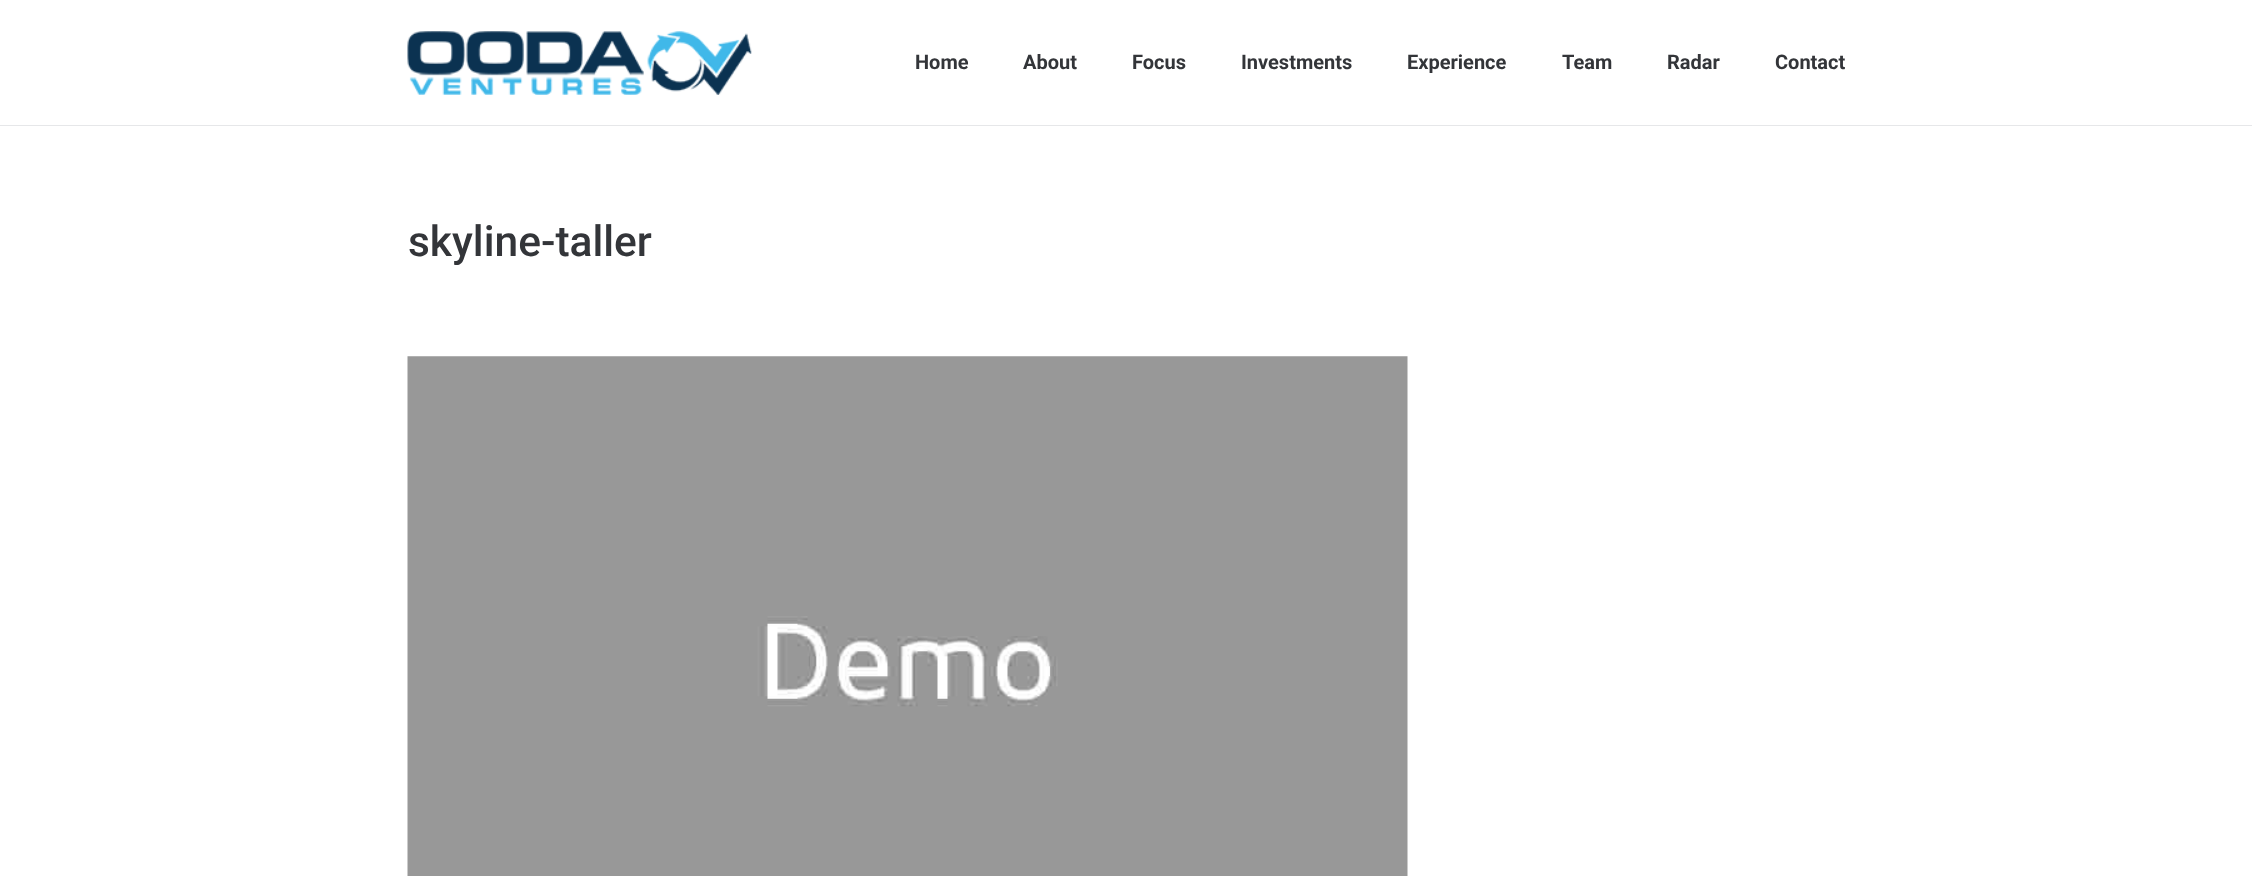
<!DOCTYPE html>
<meta charset="utf-8">
<style>body { margin: 0 } canvas { display: block }</style>
<canvas id="canvas" width="2252" height="876"></canvas>
<script type="module">
  const canvas = document.getElementById("canvas");
  const g = canvas.getContext("2d");
  g.miterLimit = 4;
  g.fontKerning = "normal";
  function drawText(s, x, y, [font, color]) {
    g.font = font;
    g.fillStyle = color;
    g.fillText(s, x, y);
  }
  function fillBox(x, y, w, h, color) {
    g.fillStyle = color;
    g.fillRect(x, y, w, h);
  }
  async function drawPicture(src, x, y, w, h) {
    const img = new Image();
    img.src = src;
    await img.decode();
    g.drawImage(img, x, y, w, h);
  }

  const s1 = ["bold 20px Roboto", "#333539"];
  const s2 = ["500 42.5px Roboto", "#333539"];

  fillBox(0, 0, 2252, 876, "#FFFFFF");
  fillBox(0, 125, 2252, 1, "#E6E7E9");
  await drawPicture("pic1.png", 407, 31, 345, 64);
  drawText("Home", 915, 69, s1);
  drawText("About", 1023, 69, s1);
  drawText("Focus", 1132, 69, s1);
  drawText("Investments", 1241, 69, s1);
  drawText("Experience", 1407, 69, s1);
  drawText("Team", 1562, 69, s1);
  drawText("Radar", 1667, 69, s1);
  drawText("Contact", 1775, 69, s1);
  drawText("skyline-taller", 408, 256, s2);
  await drawPicture("pic2.png", 407, 356, 1001, 520);
</script>
